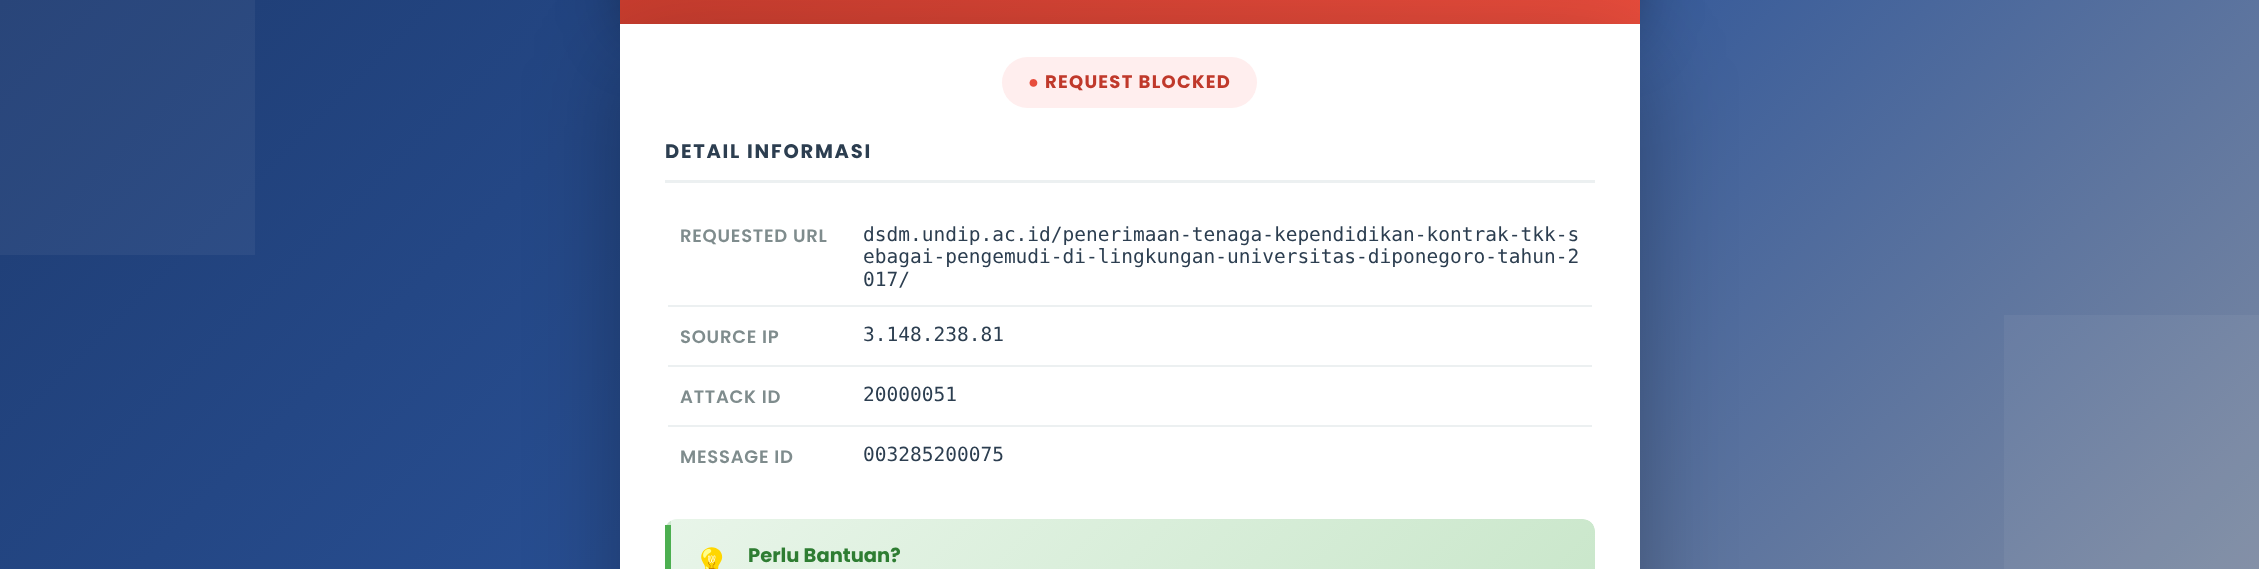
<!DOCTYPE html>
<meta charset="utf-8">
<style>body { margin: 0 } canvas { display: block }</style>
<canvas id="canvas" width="2259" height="569"></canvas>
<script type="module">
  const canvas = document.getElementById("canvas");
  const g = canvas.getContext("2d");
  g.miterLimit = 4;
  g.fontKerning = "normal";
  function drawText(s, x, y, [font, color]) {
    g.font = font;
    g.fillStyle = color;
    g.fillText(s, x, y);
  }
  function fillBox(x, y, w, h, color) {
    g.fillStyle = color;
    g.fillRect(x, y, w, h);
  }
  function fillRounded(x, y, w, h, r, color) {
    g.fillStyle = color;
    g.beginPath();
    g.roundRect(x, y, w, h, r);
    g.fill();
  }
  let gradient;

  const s1 = ["bold 18px Liberation Sans", "#E74C3C"];
  const s2 = ["bold 18px Poppins", "#C0392B"];
  const s3 = ["bold 19.5px Poppins", "#2C3E50"];
  const s4 = ["600 18px Poppins", "#7F8C8D"];
  const s5 = ["19.5px DejaVu Sans Mono", "#2C3E50"];
  const s6 = ["30px Noto Color Emoji", "#000000"];
  const s7 = ["bold 19.5px Poppins", "#2E7D32"];

  fillBox(0, 0, 2259, 569, "#FFFFFF");
  gradient = g.createLinearGradient(422, -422, 1837, 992);
  gradient.addColorStop(0, "#1E3C72");
  gradient.addColorStop(0.5, "#2A5298");
  gradient.addColorStop(1, "#7E8BA3");
  g.fillStyle = gradient;
  g.fillRect(0, 0, 2259, 569);
  fillBox(0, 0, 255, 255, "rgba(255, 255, 255, 0.05)");
  g.fillStyle = "rgba(0, 0, 0, 0.3)";
  g.filter = "blur(30px)";
  g.beginPath();
  g.roundRect(620, -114, 1020, 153, 24);
  g.fill();
  g.filter = "none";
  gradient = g.createLinearGradient(803, -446, 1456, 207);
  gradient.addColorStop(0, "#C0392B");
  gradient.addColorStop(1, "#E74C3C");
  g.fillStyle = gradient;
  g.fillRect(620, 0, 1020, 24);
  g.fillStyle = "rgba(0, 0, 0, 0.3)";
  g.filter = "blur(45px)";
  g.beginPath();
  g.roundRect(620, 54, 1020, 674, 24);
  g.fill();
  g.filter = "none";
  fillBox(620, 24, 1020, 545, "#FFFFFF");
  fillRounded(1002, 57, 255, 51, 25.5, "#FFEEEE");
  g.letterSpacing = "1.25px";
  drawText("●", 1028, 88, s1);
  drawText("REQUEST BLOCKED", 1045, 88, s2);
  fillBox(665, 180, 930, 3, "#ECF0F1");
  g.letterSpacing = "1.75px";
  drawText("DETAIL INFORMASI", 665, 158, s3);
  fillBox(668, 305, 924, 2, "#ECF0F1");
  g.letterSpacing = "0.75px";
  drawText("REQUESTED URL", 680, 242, s4);
  g.letterSpacing = "0px";
  drawText("dsdm.undip.ac.id/penerimaan-tenaga-kependidikan-kontrak-tkk-s", 863, 241, s5);
  drawText("ebagai-pengemudi-di-lingkungan-universitas-diponegoro-tahun-2", 863, 263, s5);
  drawText("017/", 863, 286, s5);
  fillBox(668, 365, 924, 2, "#ECF0F1");
  g.letterSpacing = "0.75px";
  drawText("SOURCE IP", 680, 343, s4);
  g.letterSpacing = "0px";
  drawText("3.148.238.81", 863, 341, s5);
  fillBox(668, 425, 924, 2, "#ECF0F1");
  g.letterSpacing = "0.75px";
  drawText("ATTACK ID", 680, 403, s4);
  g.letterSpacing = "0px";
  drawText("20000051", 863, 401, s5);
  g.letterSpacing = "0.75px";
  drawText("MESSAGE ID", 680, 463, s4);
  g.letterSpacing = "0px";
  drawText("003285200075", 863, 461, s5);
  g.save();
  g.beginPath();
  g.roundRect(665, 519, 930, 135, 12);
  g.clip();
  gradient = g.createLinearGradient(-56, 322, 473, 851);
  gradient.addColorStop(0, "#E8F5E9");
  gradient.addColorStop(1, "#C8E6C9");
  g.fillStyle = gradient;
  g.fillRect(666, 519, 5, 6);
  gradient = g.createLinearGradient(868, 322, 1397, 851);
  gradient.addColorStop(0, "#E8F5E9");
  gradient.addColorStop(1, "#C8E6C9");
  g.fillStyle = gradient;
  g.beginPath();
  g.moveTo(671, 519);
  g.lineTo(1583, 519);
  g.bezierCurveTo(1589.5, 519, 1595, 524.5, 1595, 531);
  g.lineTo(1595, 569);
  g.bezierCurveTo(1595, 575.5, 1589.5, 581, 1583, 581);
  g.lineTo(671, 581);
  g.closePath();
  g.fill();
  g.restore();
  fillBox(665, 525, 6, 44, "#4CAF50");
  drawText("💡", 693, 574, s6);
  drawText("Perlu Bantuan?", 748, 562, s7);
  fillBox(2004, 315, 255, 254, "rgba(255, 255, 255, 0.05)");
</script>
